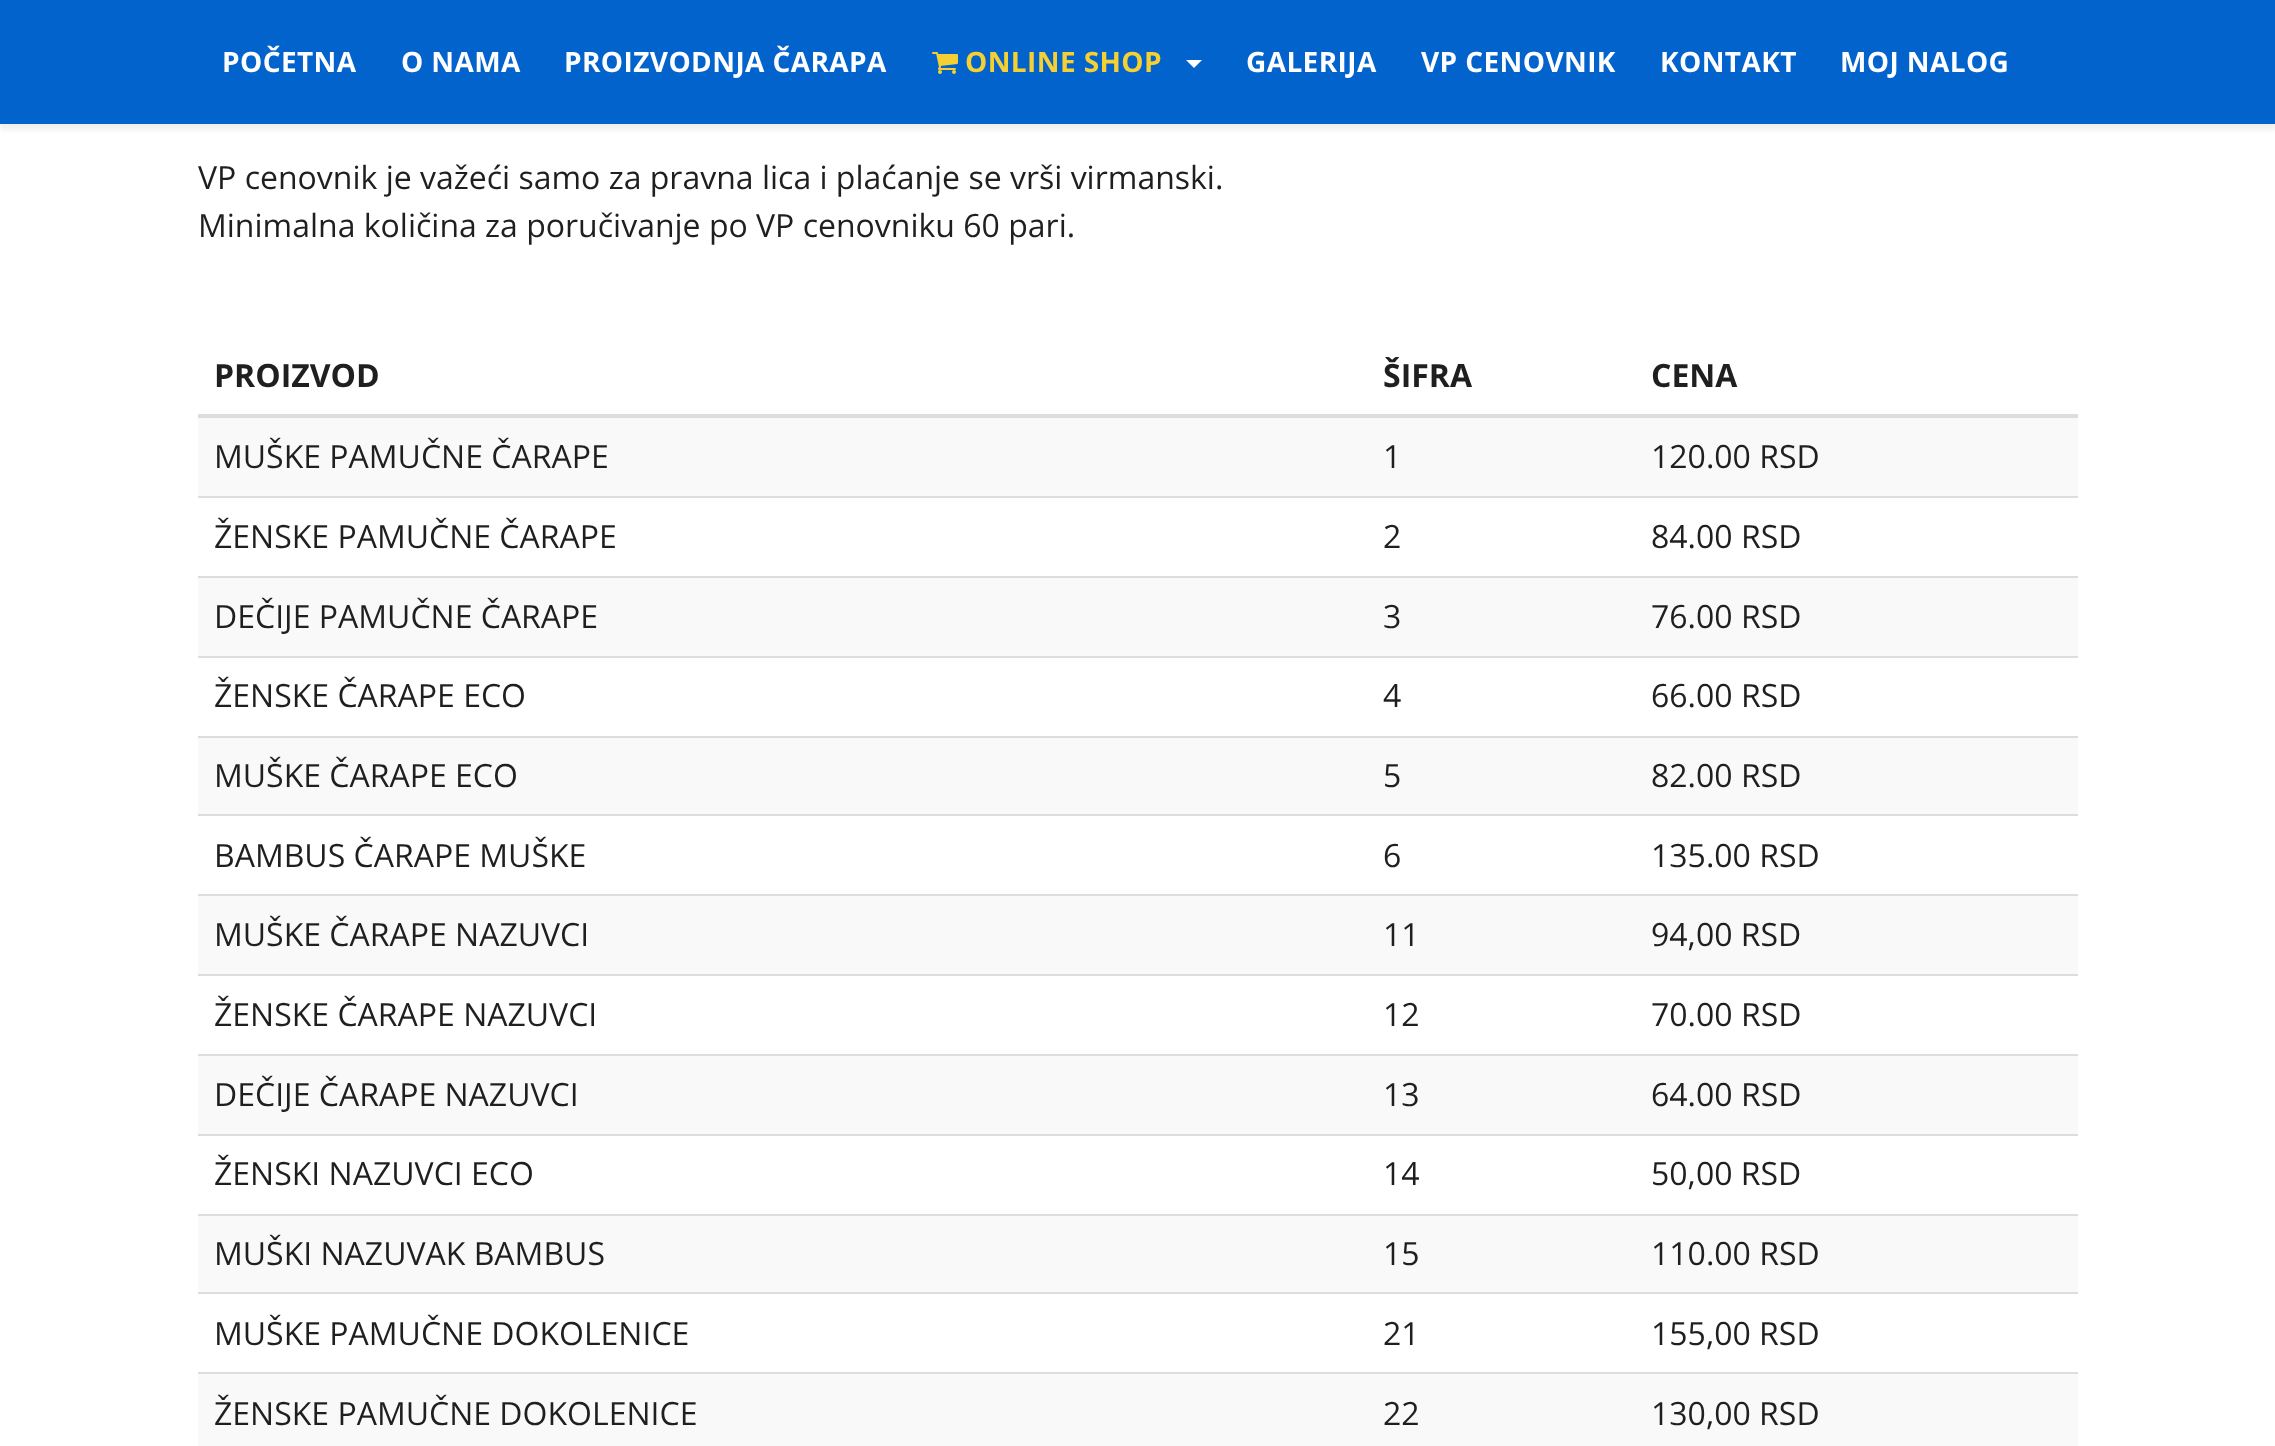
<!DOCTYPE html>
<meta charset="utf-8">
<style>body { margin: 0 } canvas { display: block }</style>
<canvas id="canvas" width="2275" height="1446"></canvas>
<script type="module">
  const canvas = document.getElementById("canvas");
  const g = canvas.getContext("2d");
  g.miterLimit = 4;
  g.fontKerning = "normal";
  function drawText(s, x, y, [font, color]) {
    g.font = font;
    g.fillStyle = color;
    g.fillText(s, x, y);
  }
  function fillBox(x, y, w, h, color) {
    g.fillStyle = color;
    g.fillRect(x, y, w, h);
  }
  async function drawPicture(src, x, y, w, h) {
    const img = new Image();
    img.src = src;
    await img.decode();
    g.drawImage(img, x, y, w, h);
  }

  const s1 = ["bold 28px Open Sans", "#FFFFFF"];
  const s2 = ["bold 28px Open Sans", "#F6D033"];
  const s3 = ["32px Open Sans", "#1F1F1F"];
  const s4 = ["bold 32px Open Sans", "#1F1F1F"];

  fillBox(0, 0, 2275, 1446, "#FFFFFF");
  g.fillStyle = "rgba(0, 0, 0, 0.06)";
  g.filter = "blur(2.5px)";
  g.beginPath();
  g.rect(0, 6, 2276, 124);
  g.fill();
  g.filter = "none";
  fillBox(0, 0, 2275, 124, "#0363CD");
  g.letterSpacing = "0.4px";
  drawText("POČETNA", 222, 72, s1);
  drawText("O NAMA", 401, 72, s1);
  drawText("PROIZVODNJA ČARAPA", 564, 72, s1);
  await drawPicture("pic1.png", 932, 52, 26, 22);
  drawText("ONLINE SHOP", 965, 72, s2);
  g.fillStyle = "#FFFFFF";
  g.beginPath();
  g.moveTo(1186, 60);
  g.lineTo(1202, 60);
  g.lineTo(1194, 68);
  g.closePath();
  g.fill();
  drawText("GALERIJA", 1246, 72, s1);
  drawText("VP CENOVNIK", 1421, 72, s1);
  drawText("KONTAKT", 1660, 72, s1);
  drawText("MOJ NALOG", 1840, 72, s1);
  g.letterSpacing = "0px";
  drawText("VP cenovnik je važeći samo za pravna lica i plaćanje se vrši virmanski.", 198, 189, s3);
  drawText("Minimalna količina za poručivanje po VP cenovniku 60 pari.", 198, 237, s3);
  drawText("PROIZVOD", 214, 387, s4);
  drawText("ŠIFRA", 1383, 387, s4);
  fillBox(198, 414, 1880, 4, "#DDDDDD");
  drawText("CENA", 1651, 387, s4);
  fillBox(198, 418, 1880, 78, "#F9F9F9");
  drawText("MUŠKE PAMUČNE ČARAPE", 214, 468, s3);
  drawText("1", 1383, 468, s3);
  drawText("120.00 RSD", 1651, 468, s3);
  drawText("ŽENSKE PAMUČNE ČARAPE", 214, 548, s3);
  drawText("2", 1383, 548, s3);
  fillBox(198, 496, 1880, 2, "#DDDDDD");
  drawText("84.00 RSD", 1651, 548, s3);
  fillBox(198, 578, 1880, 78, "#F9F9F9");
  drawText("DEČIJE PAMUČNE ČARAPE", 214, 628, s3);
  drawText("3", 1383, 628, s3);
  fillBox(198, 576, 1880, 2, "#DDDDDD");
  drawText("76.00 RSD", 1651, 628, s3);
  drawText("ŽENSKE ČARAPE ECO", 214, 707, s3);
  drawText("4", 1383, 707, s3);
  fillBox(198, 656, 1880, 2, "#DDDDDD");
  drawText("66.00 RSD", 1651, 707, s3);
  fillBox(198, 738, 1880, 76, "#F9F9F9");
  drawText("MUŠKE ČARAPE ECO", 214, 787, s3);
  drawText("5", 1383, 787, s3);
  fillBox(198, 736, 1880, 2, "#DDDDDD");
  drawText("82.00 RSD", 1651, 787, s3);
  drawText("BAMBUS ČARAPE MUŠKE", 214, 867, s3);
  drawText("6", 1383, 867, s3);
  fillBox(198, 814, 1880, 2, "#DDDDDD");
  drawText("135.00 RSD", 1651, 867, s3);
  fillBox(198, 896, 1880, 78, "#F9F9F9");
  drawText("MUŠKE ČARAPE NAZUVCI", 214, 946, s3);
  drawText("11", 1383, 946, s3);
  fillBox(198, 894, 1880, 2, "#DDDDDD");
  drawText("94,00 RSD", 1651, 946, s3);
  drawText("ŽENSKE ČARAPE NAZUVCI", 214, 1026, s3);
  drawText("12", 1383, 1026, s3);
  fillBox(198, 974, 1880, 2, "#DDDDDD");
  drawText("70.00 RSD", 1651, 1026, s3);
  fillBox(198, 1056, 1880, 78, "#F9F9F9");
  drawText("DEČIJE ČARAPE NAZUVCI", 214, 1106, s3);
  drawText("13", 1383, 1106, s3);
  fillBox(198, 1054, 1880, 2, "#DDDDDD");
  drawText("64.00 RSD", 1651, 1106, s3);
  drawText("ŽENSKI NAZUVCI ECO", 214, 1185, s3);
  drawText("14", 1383, 1185, s3);
  fillBox(198, 1134, 1880, 2, "#DDDDDD");
  drawText("50,00 RSD", 1651, 1185, s3);
  fillBox(198, 1216, 1880, 76, "#F9F9F9");
  drawText("MUŠKI NAZUVAK BAMBUS", 214, 1265, s3);
  drawText("15", 1383, 1265, s3);
  fillBox(198, 1214, 1880, 2, "#DDDDDD");
  drawText("110.00 RSD", 1651, 1265, s3);
  drawText("MUŠKE PAMUČNE DOKOLENICE", 214, 1345, s3);
  drawText("21", 1383, 1345, s3);
  fillBox(198, 1292, 1880, 2, "#DDDDDD");
  drawText("155,00 RSD", 1651, 1345, s3);
  fillBox(198, 1374, 1880, 72, "#F9F9F9");
  drawText("ŽENSKE PAMUČNE DOKOLENICE", 214, 1425, s3);
  drawText("22", 1383, 1425, s3);
  fillBox(198, 1372, 1880, 2, "#DDDDDD");
  drawText("130,00 RSD", 1651, 1425, s3);
</script>
